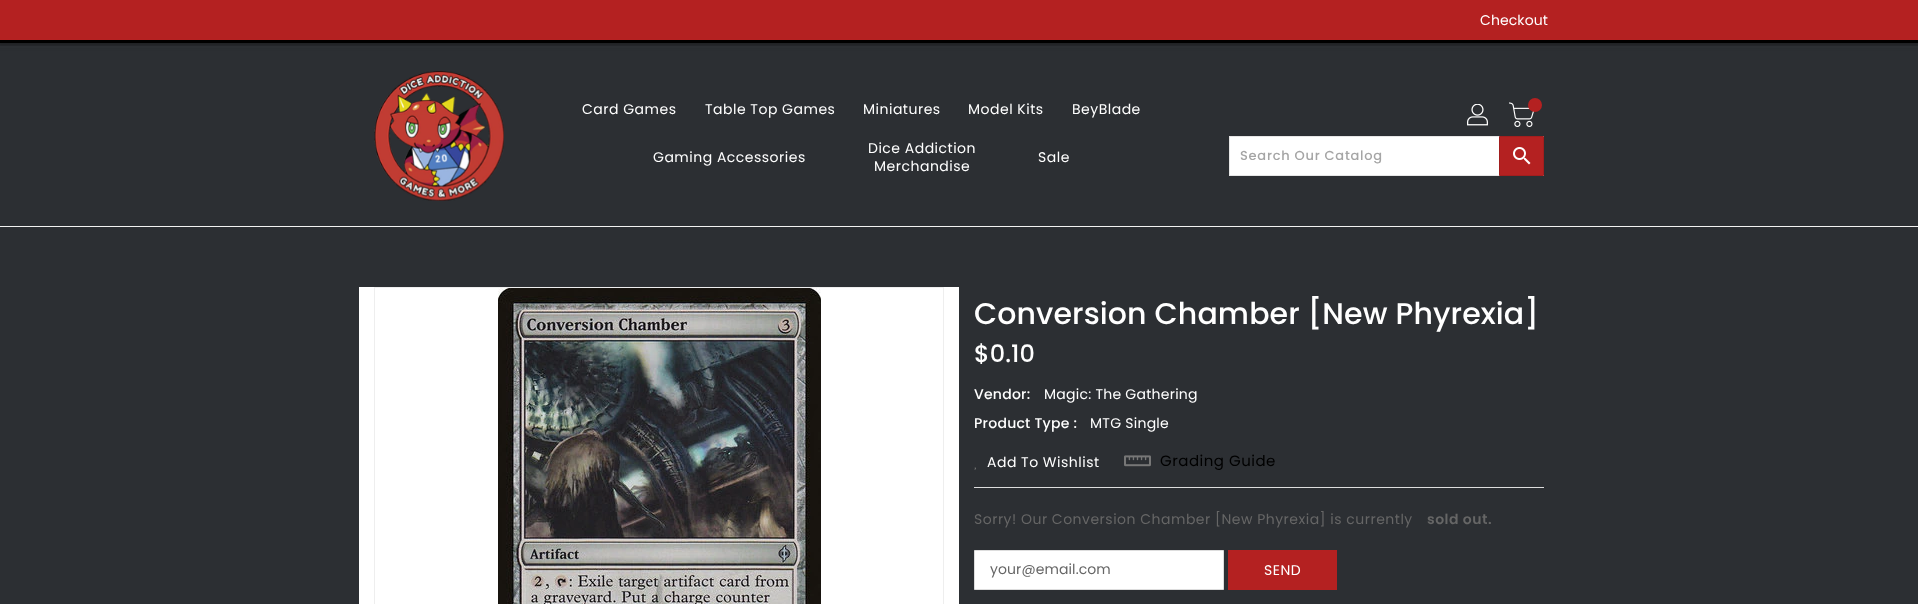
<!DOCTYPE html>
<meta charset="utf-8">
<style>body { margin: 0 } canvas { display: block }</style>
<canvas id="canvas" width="1918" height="604"></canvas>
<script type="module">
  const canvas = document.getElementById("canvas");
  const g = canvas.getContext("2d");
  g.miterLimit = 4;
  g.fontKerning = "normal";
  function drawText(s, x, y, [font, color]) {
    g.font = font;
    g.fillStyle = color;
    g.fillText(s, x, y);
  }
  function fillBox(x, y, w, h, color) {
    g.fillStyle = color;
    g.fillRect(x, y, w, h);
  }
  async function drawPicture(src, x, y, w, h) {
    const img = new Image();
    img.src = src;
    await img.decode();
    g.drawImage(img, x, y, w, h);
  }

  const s1 = ["14px Poppins", "#FFFFFF"];
  const s2 = ["500 13px Poppins", "#A5A5A5"];
  const s3 = ["500 30px Poppins", "#FFFFFF"];
  const s4 = ["500 24px Poppins", "#FFFFFF"];
  const s5 = ["500 14px Poppins", "#FFFFFF"];
  const s6 = ["15px Poppins", "#000000"];
  const s7 = ["14px Poppins", "#666666"];
  const s8 = ["600 14px Poppins", "#666666"];

  fillBox(0, 0, 1918, 604, "#2C2F33");
  fillBox(0, 226, 1918, 1, "#F2F2F2");
  g.fillStyle = "rgba(0, 0, 0, 0.3)";
  g.filter = "blur(2px)";
  g.beginPath();
  g.rect(-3, -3, 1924, 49);
  g.fill();
  g.filter = "none";
  fillBox(0, 0, 1918, 40, "#B42121");
  fillBox(0, 40, 1918, 3, "#000000");
  g.letterSpacing = "0.1px";
  drawText("Checkout", 1480, 25, s1);
  fillBox(0, 46, 1918, 2, "#2C2F33");
  await drawPicture("pic1.png", 374, 71, 130, 130);
  g.letterSpacing = "0.5px";
  drawText("Card Games", 582, 114, s1);
  drawText("Table Top Games", 705, 114, s1);
  drawText("Miniatures", 863, 114, s1);
  drawText("Model Kits", 968, 114, s1);
  drawText("BeyBlade", 1072, 114, s1);
  drawText("Gaming Accessories", 653, 162, s1);
  drawText("Dice Addiction", 868, 153, s1);
  drawText("Merchandise", 874, 171, s1);
  drawText("Sale", 1038, 162, s1);
  await drawPicture("pic2.png", 1467, 104, 21, 22);
  await drawPicture("pic3.png", 1509, 102, 26, 25);
  g.fillStyle = "#B42121";
  g.beginPath();
  g.arc(1535, 105, 7, 0, Math.PI * 2);
  g.fill();
  fillBox(1230, 137, 269, 38, "#FFFFFF");
  g.strokeStyle = "#E6E6E6";
  g.strokeRect(1229.5, 136.5, 314, 39);
  g.letterSpacing = "0.75px";
  drawText("Search Our Catalog", 1240, 160, s2);
  g.fillStyle = "#B42121";
  g.beginPath();
  g.rect(1499.5, 136.5, 44, 39);
  g.fill();
  g.strokeStyle = "#A21E1E";
  g.stroke();
  await drawPicture("pic4.png", 1513, 147, 18, 18);
  fillBox(359, 287, 600, 317, "#FFFFFF");
  g.strokeStyle = "#EEEEEE";
  g.strokeRect(374.5, 287.5, 569, 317);
  await drawPicture("pic5.png", 498, 288, 323, 316);
  g.letterSpacing = "0.1px";
  drawText("Conversion Chamber [New Phyrexia]", 974, 324, s3);
  drawText("$0.10", 974, 362, s4);
  g.letterSpacing = "0.25px";
  drawText("Vendor:", 974, 399, s5);
  drawText("Magic: The Gathering", 1044, 399, s1);
  drawText("Product Type :", 974, 428, s5);
  drawText("MTG Single", 1090, 428, s1);
  g.letterSpacing = "0.5px";
  drawText("Add To Wishlist", 987, 467, s1);
  await drawPicture("pic6.png", 974, 467, 2, 3);
  await drawPicture("pic7.png", 1124, 455, 27, 12);
  drawText("Grading Guide", 1160, 466, s6);
  fillBox(974, 487, 570, 1, "#DDDDDD");
  drawText("Sorry! Our Conversion Chamber [New Phyrexia] is currently", 974, 524, s7);
  drawText("sold out.", 1427, 524, s8);
  g.fillStyle = "#FFFFFF";
  g.beginPath();
  g.rect(974.5, 550.5, 249, 39);
  g.fill();
  g.strokeStyle = "#DDDDDD";
  g.stroke();
  g.letterSpacing = "0.1px";
  drawText("your@email.com", 990, 574, s7);
  fillBox(1228, 550, 109, 40, "#B42121");
  g.letterSpacing = "0.5px";
  drawText("SEND", 1264, 575, s1);
</script>
